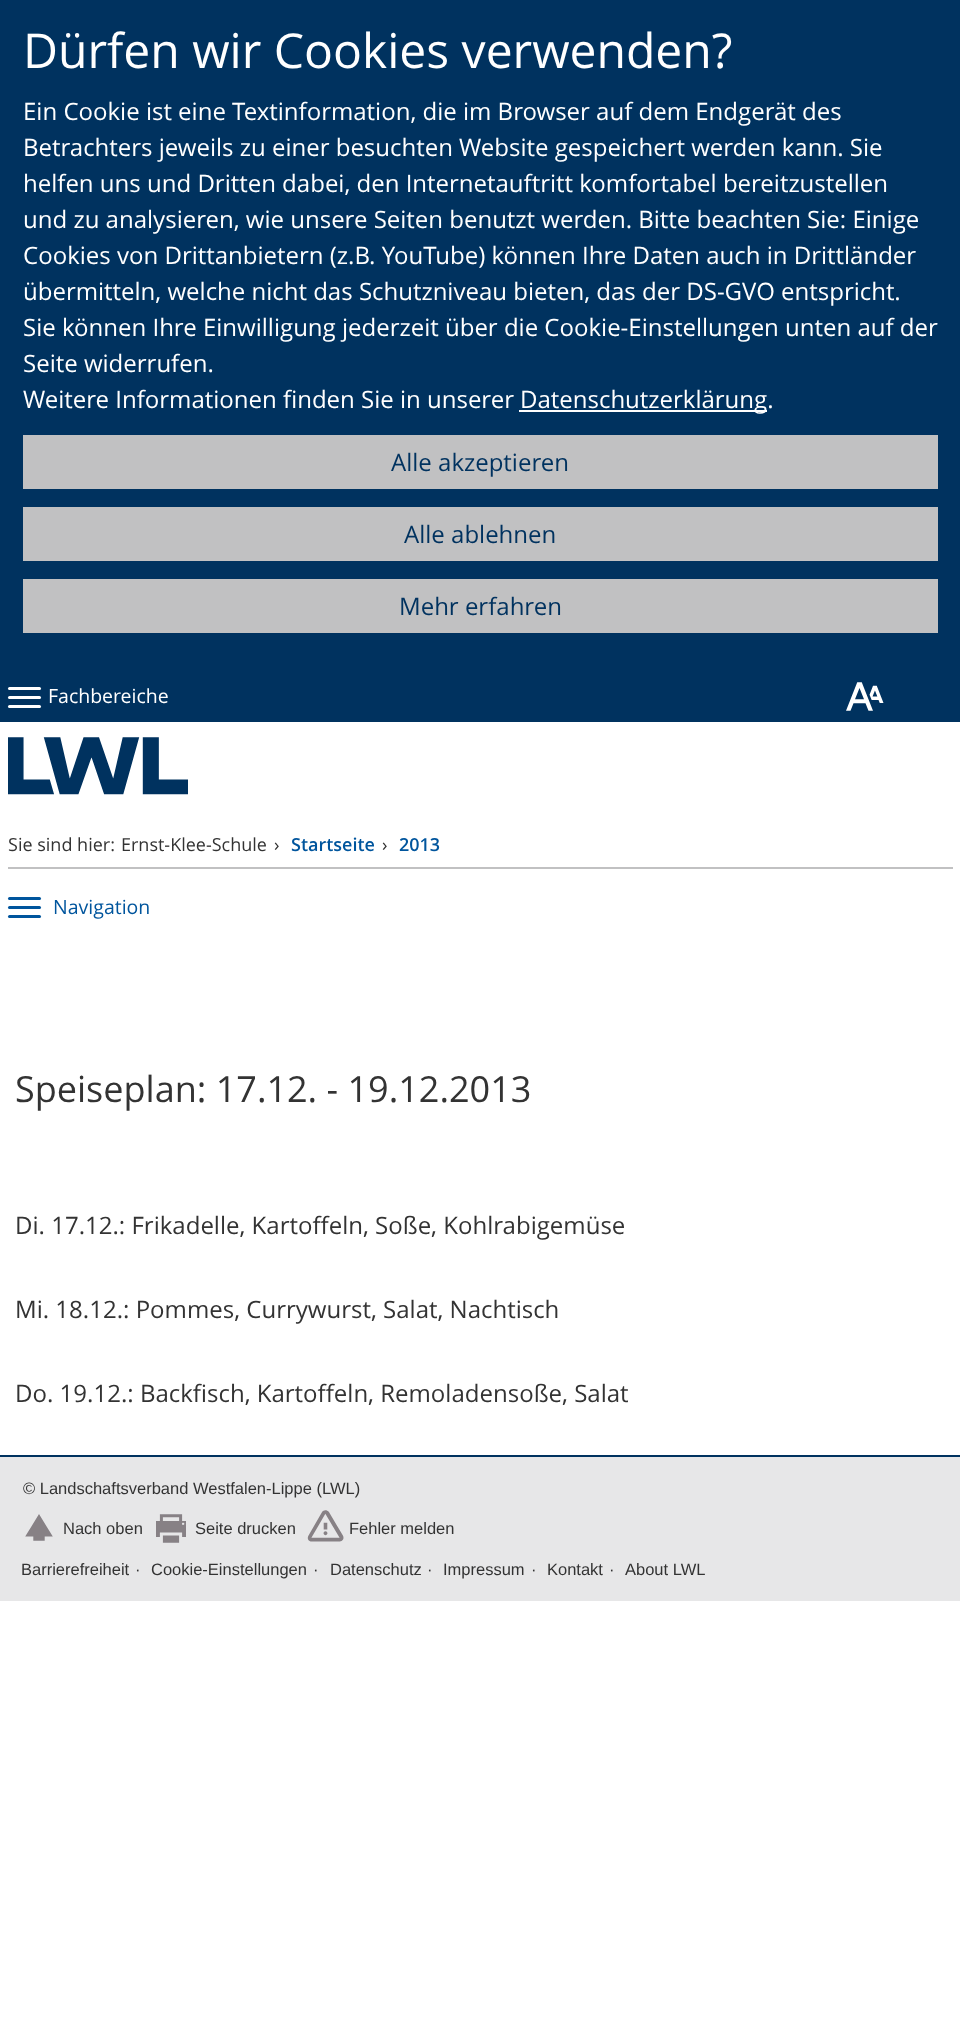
<!DOCTYPE html>
<meta charset="utf-8">
<style>body { margin: 0 } canvas { display: block }</style>
<canvas id="canvas" width="960" height="2040"></canvas>
<script type="module">
  const canvas = document.getElementById("canvas");
  const g = canvas.getContext("2d");
  g.miterLimit = 4;
  g.fontKerning = "normal";
  function drawText(s, x, y, [font, color]) {
    g.font = font;
    g.fillStyle = color;
    g.fillText(s, x, y);
  }
  function fillBox(x, y, w, h, color) {
    g.fillStyle = color;
    g.fillRect(x, y, w, h);
  }
  function fillRounded(x, y, w, h, r, color) {
    g.fillStyle = color;
    g.beginPath();
    g.roundRect(x, y, w, h, r);
    g.fill();
  }
  async function drawPicture(src, x, y, w, h) {
    const img = new Image();
    img.src = src;
    await img.decode();
    g.drawImage(img, x, y, w, h);
  }

  const s1 = ["48px Open Sans", "#FFFFFF"];
  const s2 = ["24px Open Sans", "#FFFFFF"];
  const s3 = ["24px Open Sans", "#00325F"];
  const s4 = ["19.5px Open Sans", "#FFFFFF"];
  const s5 = ["18px Open Sans", "#333333"];
  const s6 = ["600 18px Open Sans", "#00559D"];
  const s7 = ["19.5px Open Sans", "#00559D"];
  const s8 = ["36px Open Sans", "#333333"];
  const s9 = ["24px Open Sans", "#333333"];
  const s10 = ["16.5px Liberation Sans", "#333333"];

  fillBox(0, 0, 960, 2040, "#FFFFFF");
  fillBox(0, 0, 960, 722, "#00325F");
  drawText("Dürfen wir Cookies verwenden?", 23, 68, s1);
  drawText("Ein Cookie ist eine Textinformation, die im Browser auf dem Endgerät des", 23, 120, s2);
  drawText("Betrachters jeweils zu einer besuchten Website gespeichert werden kann. Sie", 23, 156, s2);
  drawText("helfen uns und Dritten dabei, den Internetauftritt komfortabel bereitzustellen", 23, 192, s2);
  drawText("und zu analysieren, wie unsere Seiten benutzt werden. Bitte beachten Sie: Einige", 23, 228, s2);
  drawText("Cookies von Drittanbietern (z.B. YouTube) können Ihre Daten auch in Drittländer", 23, 264, s2);
  drawText("übermitteln, welche nicht das Schutzniveau bieten, das der DS-GVO entspricht.", 23, 300, s2);
  drawText("Sie können Ihre Einwilligung jederzeit über die Cookie-Einstellungen unten auf der", 23, 336, s2);
  drawText("Seite widerrufen.", 23, 372, s2);
  drawText("Weitere Informationen finden Sie in unserer", 23, 408, s2);
  fillBox(519, 410, 248, 2, "#FFFFFF");
  drawText("Datenschutzerklärung.", 520, 408, s2);
  fillBox(23, 435, 915, 54, "#C1C1C2");
  drawText("Alle akzeptieren", 391, 471, s3);
  fillBox(23, 507, 915, 54, "#C1C1C2");
  drawText("Alle ablehnen", 404, 543, s3);
  fillBox(23, 579, 915, 54, "#C1C1C2");
  drawText("Mehr erfahren", 399, 615, s3);
  fillRounded(8, 687, 33, 3, 1.5, "#FFFFFF");
  fillRounded(8, 696, 33, 3, 1.5, "#FFFFFF");
  fillRounded(8, 705, 33, 3, 1.5, "#FFFFFF");
  drawText("Fachbereiche", 48, 703, s4);
  await drawPicture("pic1.png", 846, 682, 38, 29);
  await drawPicture("pic2.png", 8, 737, 180, 58);
  fillBox(8, 867, 945, 2, "#C1C1C2");
  drawText("Sie sind hier:", 8, 851, s5);
  drawText("Ernst-Klee-Schule", 121, 851, s5);
  drawText("›", 274, 851, s5);
  drawText("Startseite", 291, 851, s6);
  drawText("›", 382, 851, s5);
  drawText("2013", 399, 851, s6);
  fillRounded(8, 897, 33, 3, 1.5, "#00559D");
  fillRounded(8, 906, 33, 3, 1.5, "#00559D");
  fillRounded(8, 915, 33, 3, 1.5, "#00559D");
  drawText("Navigation", 53, 914, s7);
  drawText("Speiseplan: 17.12. - 19.12.2013", 15, 1102, s8);
  drawText("Di. 17.12.: Frikadelle, Kartoffeln, Soße, Kohlrabigemüse", 15, 1234, s9);
  drawText("Mi. 18.12.: Pommes, Currywurst, Salat, Nachtisch", 15, 1318, s9);
  drawText("Do. 19.12.: Backfisch, Kartoffeln, Remoladensoße, Salat", 15, 1402, s9);
  fillBox(0, 1455, 960, 2, "#00325F");
  fillBox(0, 1457, 960, 144, "#E7E7E8");
  drawText("© Landschaftsverband Westfalen-Lippe (LWL)", 23, 1494, s10);
  await drawPicture("pic3.png", 25, 1514, 28, 27);
  drawText("Nach oben", 63, 1534, s10);
  await drawPicture("pic4.png", 156, 1514, 30, 29);
  drawText("Seite drucken", 195, 1534, s10);
  await drawPicture("pic5.png", 307, 1510, 37, 32);
  drawText("Fehler melden", 349, 1534, s10);
  drawText("Barrierefreiheit", 21, 1575, s10);
  drawText("·", 135, 1575, s10);
  drawText("Cookie-Einstellungen", 151, 1575, s10);
  drawText("·", 313, 1575, s10);
  drawText("Datenschutz", 330, 1575, s10);
  drawText("·", 427, 1575, s10);
  drawText("Impressum", 443, 1575, s10);
  drawText("·", 531, 1575, s10);
  drawText("Kontakt", 547, 1575, s10);
  drawText("·", 609, 1575, s10);
  drawText("About LWL", 625, 1575, s10);
</script>
